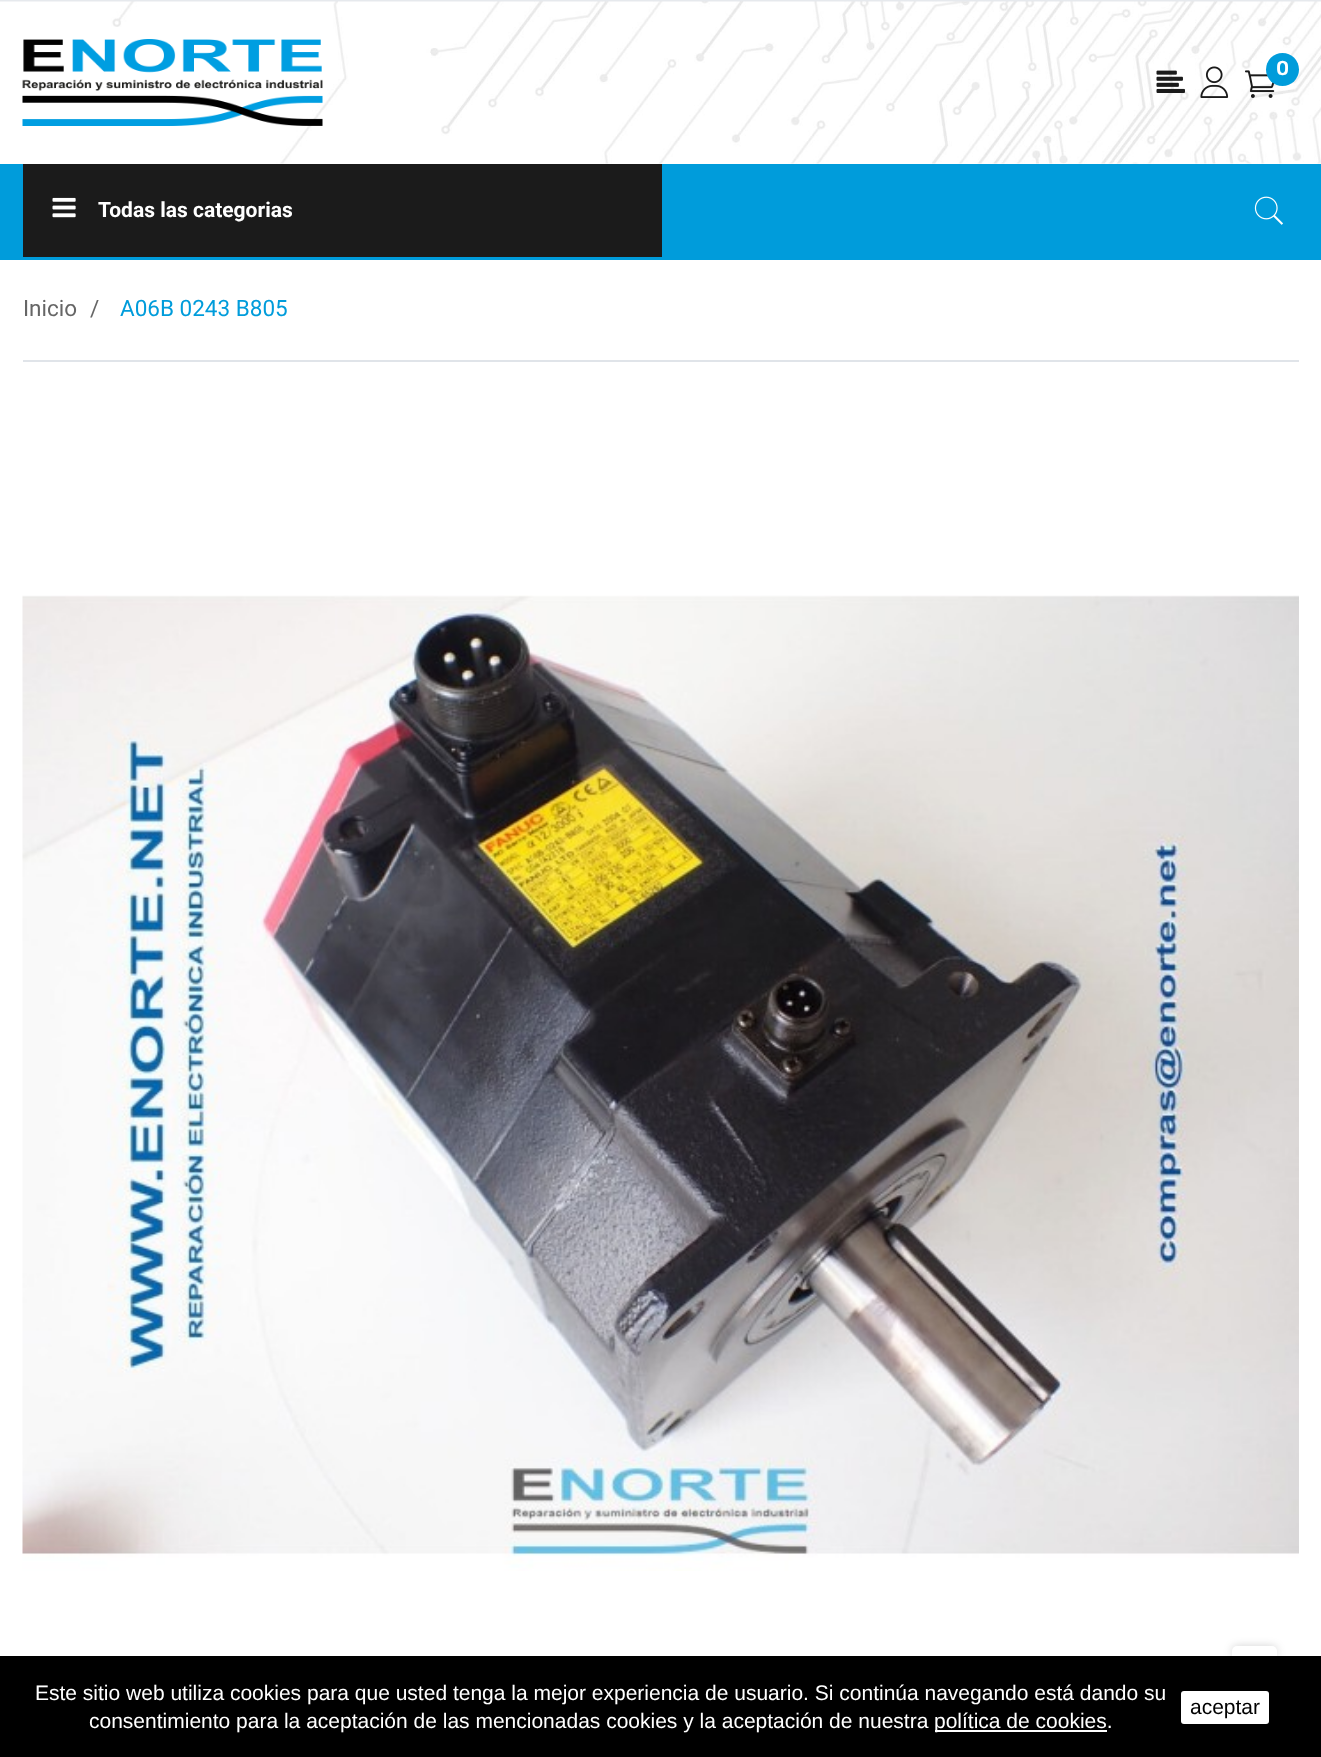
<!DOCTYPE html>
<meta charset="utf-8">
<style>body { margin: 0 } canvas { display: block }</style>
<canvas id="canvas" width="1321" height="1757"></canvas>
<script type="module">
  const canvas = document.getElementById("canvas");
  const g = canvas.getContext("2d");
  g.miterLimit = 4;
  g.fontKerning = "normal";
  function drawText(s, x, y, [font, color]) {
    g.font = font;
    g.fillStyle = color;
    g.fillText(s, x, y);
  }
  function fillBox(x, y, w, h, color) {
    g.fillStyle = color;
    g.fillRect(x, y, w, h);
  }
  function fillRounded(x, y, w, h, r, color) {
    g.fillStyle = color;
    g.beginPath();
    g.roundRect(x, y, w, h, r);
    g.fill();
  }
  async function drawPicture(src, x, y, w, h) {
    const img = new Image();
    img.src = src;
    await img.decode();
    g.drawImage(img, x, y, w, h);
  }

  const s1 = ["500 20px Rubik", "#FFFFFF"];
  const s2 = ["bold 21px Roboto", "#FFFFFF"];
  const s3 = ["22.5px Roboto", "#666666"];
  const s4 = ["22.5px Roboto", "#009CDB"];
  const s5 = ["21px Liberation Sans", "#FFFFFF"];
  const s6 = ["21px Liberation Sans", "#000000"];

  fillBox(0, 0, 1321, 1757, "#FFFFFF");
  fillBox(0, 0, 1321, 2, "#E6E9ED");
  await drawPicture("pic1.png", 0, 1, 1321, 163);
  await drawPicture("pic2.png", 22, 39, 301, 87);
  await drawPicture("pic3.png", 1200, 66, 29, 32);
  await drawPicture("pic4.png", 1245, 70, 30, 28);
  g.fillStyle = "#009CDB";
  g.beginPath();
  g.arc(1282.5, 69.5, 16.5, 0, Math.PI * 2);
  g.fill();
  drawText("0", 1276, 75, s1);
  await drawPicture("pic5.png", 1156, 70, 29, 23);
  fillBox(0, 164, 1321, 96, "#009CDB");
  fillBox(23, 164, 639, 93, "#1B1B1B");
  await drawPicture("pic6.png", 52, 197, 24, 21);
  drawText("Todas las categorias", 98, 217, s2);
  await drawPicture("pic7.png", 1254, 196, 29, 29);
  fillBox(23, 360, 1276, 2, "#E0E4E9");
  drawText("Inicio", 23, 316, s3);
  drawText("/", 90, 316, s3);
  drawText("A06B 0243 B805", 120, 316, s4);
  await drawPicture("pic8.png", 22, 595, 1277, 976);
  g.fillStyle = "rgba(0, 0, 0, 0.18)";
  g.filter = "blur(4px)";
  g.beginPath();
  g.roundRect(1232, 1646, 45, 45, 5);
  g.fill();
  g.filter = "none";
  fillRounded(1232, 1646, 45, 45, 5, "#FFFFFF");
  g.filter = "blur(7.5px)";
  g.beginPath();
  g.rect(0, 1656, 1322, 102);
  g.fill();
  g.filter = "none";
  fillBox(0, 1656, 1321, 101, "#000000");
  drawText("Este sitio web utiliza cookies para que usted tenga la mejor experiencia de usuario. Si continúa navegando está dando su", 35, 1700, s5);
  drawText("consentimiento para la aceptación de las mencionadas cookies y la aceptación de nuestra", 89, 1728, s5);
  fillBox(935, 1730, 172, 2, "#FFFFFF");
  drawText("política de cookies.", 934, 1728, s5);
  fillRounded(1181, 1691, 88, 33, 3, "#FFFFFF");
  drawText("aceptar", 1190, 1714, s6);
</script>
